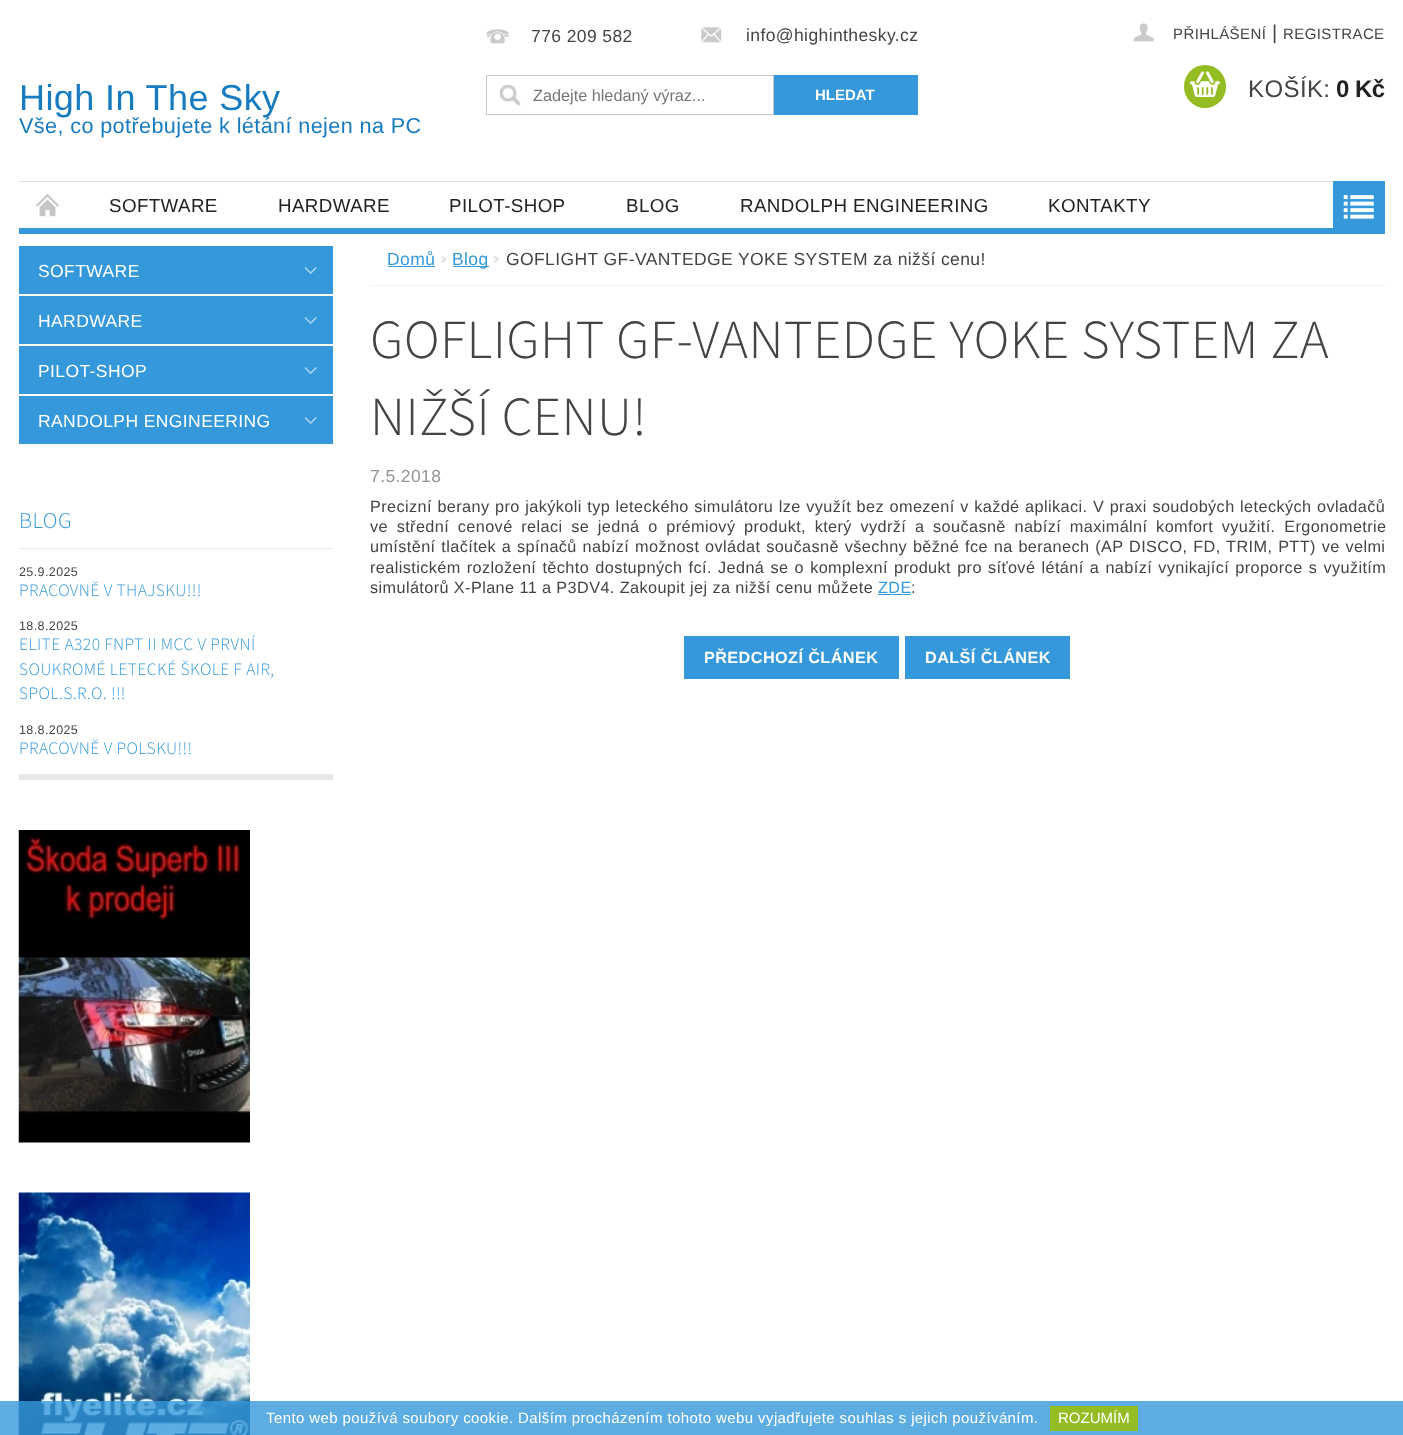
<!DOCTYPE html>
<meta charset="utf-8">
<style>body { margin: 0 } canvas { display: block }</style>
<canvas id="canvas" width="1403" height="1435"></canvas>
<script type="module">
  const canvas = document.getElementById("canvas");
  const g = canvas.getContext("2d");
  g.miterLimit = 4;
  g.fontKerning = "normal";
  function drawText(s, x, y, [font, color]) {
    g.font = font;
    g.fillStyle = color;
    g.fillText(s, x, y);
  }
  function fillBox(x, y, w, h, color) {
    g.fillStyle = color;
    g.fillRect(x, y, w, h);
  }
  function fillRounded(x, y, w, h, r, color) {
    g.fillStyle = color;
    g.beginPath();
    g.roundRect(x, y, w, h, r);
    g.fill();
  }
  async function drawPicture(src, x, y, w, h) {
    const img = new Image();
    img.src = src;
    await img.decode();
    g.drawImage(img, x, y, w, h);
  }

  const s1 = ["17.5px Liberation Sans", "#444444"];
  const s2 = ["16.25px Liberation Sans", "#757575"];
  const s3 = ["bold 15px Liberation Sans", "#FFFFFF"];
  const s4 = ["15px Liberation Sans", "#444444"];
  const s5 = ["20px Liberation Sans", "#444444"];
  const s6 = ["24px Liberation Sans", "#444444"];
  const s7 = ["bold 24px Liberation Sans", "#222222"];
  const s8 = ["36px Liberation Sans", "#177BC0"];
  const s9 = ["21.6px Liberation Sans", "#177BC0"];
  const s10 = ["18.75px Liberation Sans", "#222222"];
  const s11 = ["17.5px Liberation Sans", "#FFFFFF"];
  const s12 = ["300 22.5px 'Source Sans 3'", "#3498DB"];
  const s13 = ["12.5px Liberation Sans", "#444444"];
  const s14 = ["300 17.5px 'Source Sans 3'", "#3498DB"];
  const s15 = ["17.5px Liberation Sans", "#3498DB"];
  const s16 = ["300 55px 'Source Sans 3'", "#444444"];
  const s17 = ["17.5px Liberation Sans", "#939393"];
  const s18 = ["16.25px Liberation Sans", "#444444"];
  const s19 = ["16.25px Liberation Sans", "#3498DB"];
  const s20 = ["bold 16.25px Liberation Sans", "#FFFFFF"];
  const s21 = ["15px Liberation Sans", "#FFFFFF"];

  fillBox(0, 0, 1403, 1435, "#FFFFFF");
  fillBox(19, 228, 1314, 6, "#3498DB");
  await drawPicture("pic1.png", 486, 29, 23, 15);
  g.letterSpacing = "0.4px";
  drawText("776 209 582", 531, 42, s1);
  await drawPicture("pic2.png", 701, 27, 21, 16);
  drawText("info@highinthesky.cz", 746, 41, s1);
  await drawPicture("pic3.png", 500, 85, 21, 21);
  g.strokeStyle = "#C6C6C6";
  g.strokeRect(486.5, 75.5, 287, 39);
  g.letterSpacing = "0px";
  drawText("Zadejte hledaný výraz...", 533, 101, s2);
  fillBox(774, 75, 144, 40, "#3498DB");
  drawText("HLEDAT", 815, 100, s3);
  await drawPicture("pic4.png", 1133, 23, 21, 19);
  g.letterSpacing = "0.4px";
  drawText("PŘIHLÁŠENÍ", 1173, 39, s4);
  drawText("|", 1272, 39, s5);
  drawText("REGISTRACE", 1283, 39, s4);
  fillRounded(1184, 65, 42, 43, 21, "#94BD23");
  await drawPicture("pic5.png", 1190, 71, 30, 26);
  drawText("KOŠÍK:", 1248, 97, s6);
  g.letterSpacing = "-0.5px";
  drawText("0 Kč", 1336, 97, s7);
  g.letterSpacing = "0.4px";
  drawText("High In The Sky", 19, 110, s8);
  drawText("Vše, co potřebujete k létání nejen na PC", 19, 133, s9);
  fillBox(19, 181, 1314, 1, "#E0E0E0");
  await drawPicture("pic6.png", 36, 194, 23, 23);
  drawText("SOFTWARE", 109, 212, s10);
  drawText("HARDWARE", 278, 212, s10);
  drawText("PILOT-SHOP", 449, 212, s10);
  drawText("BLOG", 626, 212, s10);
  drawText("RANDOLPH ENGINEERING", 740, 212, s10);
  drawText("KONTAKTY", 1048, 212, s10);
  fillBox(1333, 181, 52, 53, "#3498DB");
  await drawPicture("pic7.png", 1343, 195, 31, 24);
  fillBox(19, 246, 314, 48, "#3498DB");
  await drawPicture("pic8.png", 304, 267, 13, 7);
  drawText("SOFTWARE", 38, 277, s11);
  fillBox(19, 296, 314, 48, "#3498DB");
  await drawPicture("pic8.png", 304, 317, 13, 7);
  drawText("HARDWARE", 38, 327, s11);
  fillBox(19, 346, 314, 48, "#3498DB");
  await drawPicture("pic8.png", 304, 367, 13, 7);
  drawText("PILOT-SHOP", 38, 377, s11);
  fillBox(19, 396, 314, 48, "#3498DB");
  await drawPicture("pic8.png", 304, 417, 13, 7);
  drawText("RANDOLPH ENGINEERING", 38, 427, s11);
  fillBox(19, 774, 314, 6, "#E7E7E7");
  fillBox(19, 548, 314, 1, "#E7E7E7");
  drawText("BLOG", 19, 528, s12);
  drawText("25.9.2025", 19, 576, s13);
  drawText("PRACOVNĚ V THAJSKU!!!", 19, 596, s14);
  drawText("18.8.2025", 19, 630, s13);
  drawText("ELITE A320 FNPT II MCC V PRVNÍ", 19, 650, s14);
  drawText("SOUKROMÉ LETECKÉ ŠKOLE F AIR,", 19, 675, s14);
  drawText("SPOL.S.R.O. !!!", 19, 699, s14);
  drawText("18.8.2025", 19, 734, s13);
  drawText("PRACOVNĚ V POLSKU!!!", 19, 754, s14);
  await drawPicture("pic9.png", 18, 830, 232, 313);
  await drawPicture("pic10.png", 18, 1192, 232, 243);
  fillBox(370, 285, 1015, 1, "#F2F2F2");
  drawText("Domů", 387, 265, s15);
  fillBox(388, 266, 47, 1, "#3498DB");
  await drawPicture("pic11.png", 441, 256, 6, 7);
  fillBox(453, 266, 36, 1, "#3498DB");
  drawText("Blog", 452, 265, s15);
  await drawPicture("pic12.png", 493, 256, 6, 7);
  drawText("GOFLIGHT GF-VANTEDGE YOKE SYSTEM za nižší cenu!", 506, 265, s1);
  drawText("GOFLIGHT GF-VANTEDGE YOKE SYSTEM ZA", 370, 358, s16);
  drawText("NIŽŠÍ CENU!", 370, 435, s16);
  drawText("7.5.2018", 370, 482, s17);
  g.wordSpacing = "0.6px";
  drawText("Precizní berany pro jakýkoli typ leteckého simulátoru lze využít bez omezení v každé aplikaci. V praxi soudobých leteckých ovladačů", 370, 512, s18);
  g.wordSpacing = "3.75px";
  drawText("ve střední cenové relaci se jedná o prémiový produkt, který vydrží a současně nabízí maximální komfort využití. Ergonometrie", 370, 532, s18);
  g.wordSpacing = "0.9px";
  drawText("umístění tlačítek a spínačů nabízí možnost ovládat současně všechny běžné fce na beranech (AP DISCO, FD, TRIM, PTT) ve velmi", 370, 552, s18);
  g.wordSpacing = "1.25px";
  drawText("realistickém rozložení těchto dostupných fcí. Jedná se o komplexní produkt pro síťové létání a nabízí vynikající proporce s využitím", 370, 573, s18);
  g.wordSpacing = "0px";
  drawText("simulátorů X-Plane 11 a P3DV4. Zakoupit jej za nižší cenu můžete", 370, 593, s18);
  drawText("ZDE", 878, 593, s19);
  fillBox(878, 594, 33, 1, "#3498DB");
  drawText(":", 911, 593, s18);
  fillBox(684, 636, 215, 43, "#3498DB");
  drawText("PŘEDCHOZÍ ČLÁNEK", 704, 663, s20);
  fillBox(905, 636, 165, 43, "#3498DB");
  drawText("DALŠÍ ČLÁNEK", 925, 663, s20);
  fillBox(0, 1401, 1403, 34, "rgba(52, 152, 219, 0.8)");
  drawText("Tento web používá soubory cookie. Dalším procházením tohoto webu vyjadřujete souhlas s jejich používáním.", 266, 1423, s21);
  fillBox(1050, 1406, 88, 25, "#94BD23");
  g.letterSpacing = "0px";
  drawText("ROZUMÍM", 1058, 1423, s21);
</script>
